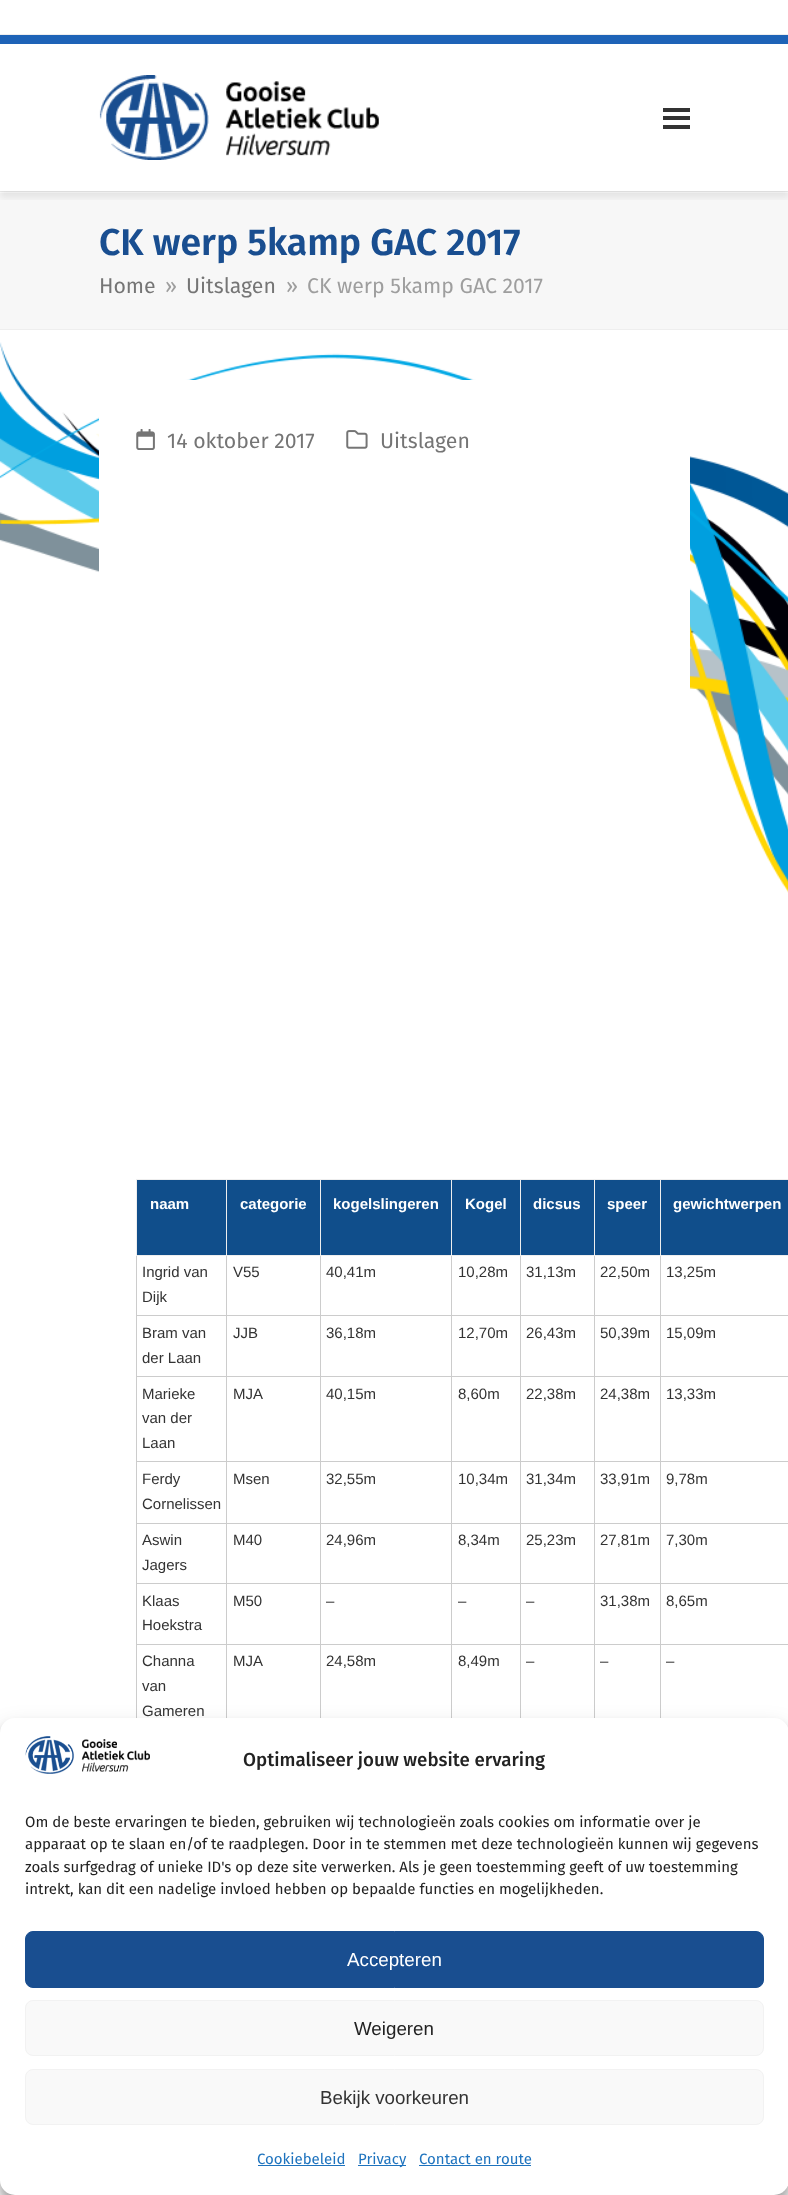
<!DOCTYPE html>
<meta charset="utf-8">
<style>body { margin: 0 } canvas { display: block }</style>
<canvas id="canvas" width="788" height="2195"></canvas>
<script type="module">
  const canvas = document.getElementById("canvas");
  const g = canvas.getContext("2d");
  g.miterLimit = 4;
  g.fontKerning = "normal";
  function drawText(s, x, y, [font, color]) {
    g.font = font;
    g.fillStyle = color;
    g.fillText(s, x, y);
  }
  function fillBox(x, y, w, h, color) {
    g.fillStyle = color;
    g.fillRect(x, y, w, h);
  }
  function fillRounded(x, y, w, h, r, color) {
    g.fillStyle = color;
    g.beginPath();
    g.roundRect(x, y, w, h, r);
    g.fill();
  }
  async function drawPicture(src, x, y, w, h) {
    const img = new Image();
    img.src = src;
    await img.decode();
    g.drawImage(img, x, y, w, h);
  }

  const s1 = ["600 37.4px Fira Sans", "#194E90"];
  const s2 = ["21.25px Fira Sans", "#757575"];
  const s3 = ["21.25px Fira Sans", "#9E9E9E"];
  const s4 = ["bold 15px Liberation Sans", "#FFFFFF"];
  const s5 = ["15px Liberation Sans", "#333333"];
  const s6 = ["500 18.75px Fira Sans", "#222222"];
  const s7 = ["15px Fira Sans", "#222222"];
  const s8 = ["18.75px Liberation Sans", "#FFFFFF"];
  const s9 = ["18.75px Liberation Sans", "#222222"];
  const s10 = ["18.75px Liberation Sans", "#333333"];
  const s11 = ["15px Fira Sans", "#1E73BE"];

  fillBox(0, 0, 788, 2195, "#FFFFFF");
  fillBox(0, 34, 788, 1, "#EEEEEE");
  fillBox(0, 193, 788, 136, "#F7F7F7");
  fillBox(0, 191, 788, 1, "#EEEEEE");
  g.save();
  g.beginPath();
  g.rect(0, 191, 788, 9);
  g.clip();
  g.fillStyle = "rgba(0, 0, 0, 0.07)";
  g.filter = "blur(3px)";
  g.beginPath();
  g.rect(0, 41, 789, 157);
  g.fill();
  g.filter = "none";
  g.restore();
  fillBox(0, 35, 788, 9, "#1E63B7");
  await drawPicture("pic1.png", 99, 75, 280, 85);
  fillBox(663, 116, 27, 4, "#333333");
  fillBox(663, 108, 27, 4, "#333333");
  fillBox(663, 125, 27, 4, "#333333");
  await drawPicture("pic2.png", 0, 342, 788, 551);
  fillBox(0, 329, 788, 1, "#EEEEEE");
  drawText("CK werp 5kamp GAC 2017", 99, 255, s1);
  drawText("Home", 99, 293, s2);
  drawText("»", 165, 293, s3);
  drawText("Uitslagen", 186, 293, s2);
  drawText("»", 286, 293, s3);
  drawText("CK werp 5kamp GAC 2017", 307, 293, s3);
  fillRounded(99, 380, 591, 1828, 13, "#FFFFFF");
  await drawPicture("pic3.png", 136, 429, 19, 21);
  drawText("14 oktober 2017", 167, 448, s2);
  await drawPicture("pic4.png", 346, 430, 22, 19);
  drawText("Uitslagen", 380, 448, s2);
  fillBox(136, 1256, 1, 462, "#CCCCCC");
  fillBox(137, 1180, 183, 75, "#104E8B");
  fillBox(660, 1179, 128, 1, "#EEEEEE");
  fillBox(660, 1315, 128, 1, "#CCCCCC");
  fillBox(660, 1376, 128, 1, "#CCCCCC");
  fillBox(660, 1461, 128, 1, "#CCCCCC");
  fillBox(660, 1523, 128, 1, "#CCCCCC");
  fillBox(660, 1583, 128, 1, "#CCCCCC");
  fillBox(660, 1644, 128, 1, "#CCCCCC");
  fillBox(660, 1644, 1, 74, "#CCCCCC");
  fillBox(594, 1644, 67, 1, "#CCCCCC");
  fillBox(660, 1583, 1, 62, "#CCCCCC");
  fillBox(594, 1583, 67, 1, "#CCCCCC");
  fillBox(660, 1523, 1, 61, "#CCCCCC");
  fillBox(594, 1523, 67, 1, "#CCCCCC");
  fillBox(660, 1461, 1, 63, "#CCCCCC");
  fillBox(594, 1461, 67, 1, "#CCCCCC");
  fillBox(660, 1376, 1, 87, "#CCCCCC");
  fillBox(594, 1376, 67, 1, "#CCCCCC");
  fillBox(660, 1315, 1, 63, "#CCCCCC");
  fillBox(594, 1315, 67, 1, "#CCCCCC");
  fillBox(660, 1255, 1, 61, "#CCCCCC");
  fillBox(660, 1255, 128, 1, "#EEEEEE");
  fillBox(660, 1179, 1, 77, "#EEEEEE");
  fillBox(594, 1179, 67, 1, "#EEEEEE");
  fillBox(594, 1644, 1, 74, "#CCCCCC");
  fillBox(520, 1644, 75, 1, "#CCCCCC");
  fillBox(594, 1583, 1, 62, "#CCCCCC");
  fillBox(520, 1583, 75, 1, "#CCCCCC");
  fillBox(594, 1523, 1, 61, "#CCCCCC");
  fillBox(520, 1523, 75, 1, "#CCCCCC");
  fillBox(594, 1461, 1, 63, "#CCCCCC");
  fillBox(520, 1461, 75, 1, "#CCCCCC");
  fillBox(594, 1376, 1, 87, "#CCCCCC");
  fillBox(520, 1376, 75, 1, "#CCCCCC");
  fillBox(594, 1315, 1, 63, "#CCCCCC");
  fillBox(520, 1315, 75, 1, "#CCCCCC");
  fillBox(594, 1255, 1, 61, "#CCCCCC");
  fillBox(594, 1255, 67, 1, "#EEEEEE");
  fillBox(594, 1179, 1, 77, "#EEEEEE");
  fillBox(520, 1179, 75, 1, "#EEEEEE");
  fillBox(520, 1644, 1, 74, "#CCCCCC");
  fillBox(451, 1644, 70, 1, "#CCCCCC");
  fillBox(520, 1583, 1, 62, "#CCCCCC");
  fillBox(451, 1583, 70, 1, "#CCCCCC");
  fillBox(520, 1523, 1, 61, "#CCCCCC");
  fillBox(451, 1523, 70, 1, "#CCCCCC");
  fillBox(520, 1461, 1, 63, "#CCCCCC");
  fillBox(451, 1461, 70, 1, "#CCCCCC");
  fillBox(520, 1376, 1, 87, "#CCCCCC");
  fillBox(451, 1376, 70, 1, "#CCCCCC");
  fillBox(520, 1315, 1, 63, "#CCCCCC");
  fillBox(451, 1315, 70, 1, "#CCCCCC");
  fillBox(520, 1255, 1, 61, "#CCCCCC");
  fillBox(520, 1255, 75, 1, "#EEEEEE");
  fillBox(520, 1179, 1, 77, "#EEEEEE");
  fillBox(451, 1179, 70, 1, "#EEEEEE");
  fillBox(321, 1180, 199, 75, "#104E8B");
  fillBox(451, 1644, 1, 74, "#CCCCCC");
  fillBox(320, 1644, 133, 1, "#CCCCCC");
  fillBox(451, 1583, 1, 62, "#CCCCCC");
  fillBox(320, 1583, 133, 1, "#CCCCCC");
  fillBox(451, 1523, 1, 61, "#CCCCCC");
  fillBox(320, 1523, 133, 1, "#CCCCCC");
  fillBox(451, 1461, 1, 63, "#CCCCCC");
  fillBox(320, 1461, 133, 1, "#CCCCCC");
  fillBox(451, 1376, 1, 87, "#CCCCCC");
  fillBox(320, 1376, 133, 1, "#CCCCCC");
  fillBox(451, 1315, 1, 63, "#CCCCCC");
  fillBox(320, 1315, 133, 1, "#CCCCCC");
  fillBox(451, 1255, 1, 61, "#CCCCCC");
  fillBox(451, 1255, 70, 1, "#EEEEEE");
  fillBox(451, 1179, 1, 77, "#EEEEEE");
  fillBox(320, 1179, 133, 1, "#EEEEEE");
  fillBox(320, 1644, 1, 74, "#CCCCCC");
  fillBox(226, 1644, 95, 1, "#CCCCCC");
  fillBox(320, 1583, 1, 62, "#CCCCCC");
  fillBox(226, 1583, 95, 1, "#CCCCCC");
  fillBox(320, 1523, 1, 61, "#CCCCCC");
  fillBox(226, 1523, 95, 1, "#CCCCCC");
  fillBox(320, 1461, 1, 63, "#CCCCCC");
  fillBox(226, 1461, 95, 1, "#CCCCCC");
  fillBox(320, 1376, 1, 87, "#CCCCCC");
  fillBox(226, 1376, 95, 1, "#CCCCCC");
  fillBox(320, 1315, 1, 63, "#CCCCCC");
  fillBox(226, 1315, 95, 1, "#CCCCCC");
  fillBox(320, 1255, 1, 61, "#CCCCCC");
  fillBox(320, 1255, 133, 1, "#EEEEEE");
  fillBox(320, 1179, 1, 77, "#EEEEEE");
  fillBox(226, 1179, 95, 1, "#EEEEEE");
  fillBox(226, 1644, 1, 74, "#CCCCCC");
  fillBox(136, 1644, 92, 1, "#CCCCCC");
  fillBox(226, 1583, 1, 62, "#CCCCCC");
  fillBox(136, 1583, 92, 1, "#CCCCCC");
  fillBox(226, 1523, 1, 61, "#CCCCCC");
  fillBox(136, 1523, 92, 1, "#CCCCCC");
  fillBox(226, 1461, 1, 63, "#CCCCCC");
  fillBox(136, 1461, 92, 1, "#CCCCCC");
  fillBox(226, 1376, 1, 87, "#CCCCCC");
  fillBox(136, 1376, 92, 1, "#CCCCCC");
  fillBox(226, 1315, 1, 63, "#CCCCCC");
  fillBox(136, 1315, 92, 1, "#CCCCCC");
  fillBox(226, 1255, 1, 61, "#CCCCCC");
  fillBox(226, 1255, 95, 1, "#EEEEEE");
  fillBox(226, 1179, 1, 77, "#EEEEEE");
  fillBox(136, 1179, 92, 1, "#EEEEEE");
  fillBox(136, 1255, 92, 1, "#EEEEEE");
  fillBox(136, 1179, 1, 77, "#EEEEEE");
  drawText("naam", 150, 1209, s4);
  drawText("categorie", 240, 1209, s4);
  drawText("kogelslingeren", 333, 1209, s4);
  drawText("Kogel", 465, 1209, s4);
  fillBox(521, 1180, 73, 75, "#104E8B");
  drawText("dicsus", 533, 1209, s4);
  fillBox(595, 1180, 65, 75, "#104E8B");
  drawText("speer", 607, 1209, s4);
  fillBox(661, 1180, 127, 75, "#104E8B");
  drawText("gewichtwerpen", 673, 1209, s4);
  drawText("Ingrid van", 142, 1277, s5);
  drawText("Dijk", 142, 1302, s5);
  drawText("V55", 233, 1277, s5);
  drawText("40,41m", 326, 1277, s5);
  drawText("10,28m", 458, 1277, s5);
  drawText("31,13m", 526, 1277, s5);
  drawText("22,50m", 600, 1277, s5);
  drawText("13,25m", 666, 1277, s5);
  drawText("Bram van", 142, 1338, s5);
  drawText("der Laan", 142, 1363, s5);
  drawText("JJB", 233, 1338, s5);
  drawText("36,18m", 326, 1338, s5);
  drawText("12,70m", 458, 1338, s5);
  drawText("26,43m", 526, 1338, s5);
  drawText("50,39m", 600, 1338, s5);
  drawText("15,09m", 666, 1338, s5);
  drawText("Marieke", 142, 1399, s5);
  drawText("van der", 142, 1423, s5);
  drawText("Laan", 142, 1448, s5);
  drawText("MJA", 233, 1399, s5);
  drawText("40,15m", 326, 1399, s5);
  drawText("8,60m", 458, 1399, s5);
  drawText("22,38m", 526, 1399, s5);
  drawText("24,38m", 600, 1399, s5);
  drawText("13,33m", 666, 1399, s5);
  drawText("Ferdy", 142, 1484, s5);
  drawText("Cornelissen", 142, 1509, s5);
  drawText("Msen", 233, 1484, s5);
  drawText("32,55m", 326, 1484, s5);
  drawText("10,34m", 458, 1484, s5);
  drawText("31,34m", 526, 1484, s5);
  drawText("33,91m", 600, 1484, s5);
  drawText("9,78m", 666, 1484, s5);
  drawText("Aswin", 142, 1545, s5);
  drawText("Jagers", 142, 1570, s5);
  drawText("M40", 233, 1545, s5);
  drawText("24,96m", 326, 1545, s5);
  drawText("8,34m", 458, 1545, s5);
  drawText("25,23m", 526, 1545, s5);
  drawText("27,81m", 600, 1545, s5);
  drawText("7,30m", 666, 1545, s5);
  drawText("Klaas", 142, 1606, s5);
  drawText("Hoekstra", 142, 1630, s5);
  drawText("M50", 233, 1606, s5);
  drawText("–", 326, 1606, s5);
  drawText("–", 458, 1606, s5);
  drawText("–", 526, 1606, s5);
  drawText("31,38m", 600, 1606, s5);
  drawText("8,65m", 666, 1606, s5);
  drawText("Channa", 142, 1666, s5);
  drawText("van", 142, 1691, s5);
  drawText("Gameren", 142, 1716, s5);
  drawText("MJA", 233, 1666, s5);
  drawText("24,58m", 326, 1666, s5);
  drawText("8,49m", 458, 1666, s5);
  drawText("–", 526, 1666, s5);
  drawText("–", 600, 1666, s5);
  drawText("–", 666, 1666, s5);
  g.fillStyle = "rgba(0, 0, 0, 0.23)";
  g.filter = "blur(4px)";
  g.beginPath();
  g.roundRect(0, 1725, 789, 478, 15);
  g.fill();
  g.filter = "none";
  g.fillStyle = "rgba(0, 0, 0, 0.19)";
  g.filter = "blur(12.5px)";
  g.beginPath();
  g.roundRect(0, 1730, 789, 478, 15);
  g.fill();
  g.filter = "none";
  fillRounded(0, 1718, 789, 477, 15, "#FFFFFF");
  await drawPicture("pic5.png", 25, 1736, 125, 38);
  drawText("Optimaliseer jouw website ervaring", 243, 1766, s6);
  drawText("Om de beste ervaringen te bieden, gebruiken wij technologieën zoals cookies om informatie over je", 25, 1827, s7);
  drawText("apparaat op te slaan en/of te raadplegen. Door in te stemmen met deze technologieën kunnen wij gegevens", 25, 1849, s7);
  drawText("zoals surfgedrag of unieke ID's op deze site verwerken. Als je geen toestemming geeft of uw toestemming", 25, 1872, s7);
  drawText("intrekt, kan dit een nadelige invloed hebben op bepaalde functies en mogelijkheden.", 25, 1894, s7);
  g.fillStyle = "#194E90";
  g.beginPath();
  g.roundRect(25.5, 1931.5, 738, 56, 7.5);
  g.fill();
  g.strokeStyle = "#194E90";
  g.stroke();
  drawText("Accepteren", 347, 1966, s8);
  g.fillStyle = "#F9F9F9";
  g.beginPath();
  g.roundRect(25.5, 2000.5, 738, 55, 7.5);
  g.fill();
  g.strokeStyle = "#F2F2F2";
  g.stroke();
  drawText("Weigeren", 354, 2035, s9);
  g.fillStyle = "#F9F9F9";
  g.beginPath();
  g.roundRect(25.5, 2069.5, 738, 55, 7.5);
  g.fill();
  g.stroke();
  drawText("Bekijk voorkeuren", 320, 2104, s10);
  drawText("Cookiebeleid", 257, 2164, s11);
  fillBox(258, 2165, 87, 1, "#1E73BE");
  fillBox(358, 2165, 48, 1, "#1E73BE");
  drawText("Privacy", 358, 2164, s11);
  drawText("Contact en route", 419, 2164, s11);
  fillBox(419, 2165, 112, 1, "#1E73BE");
</script>
